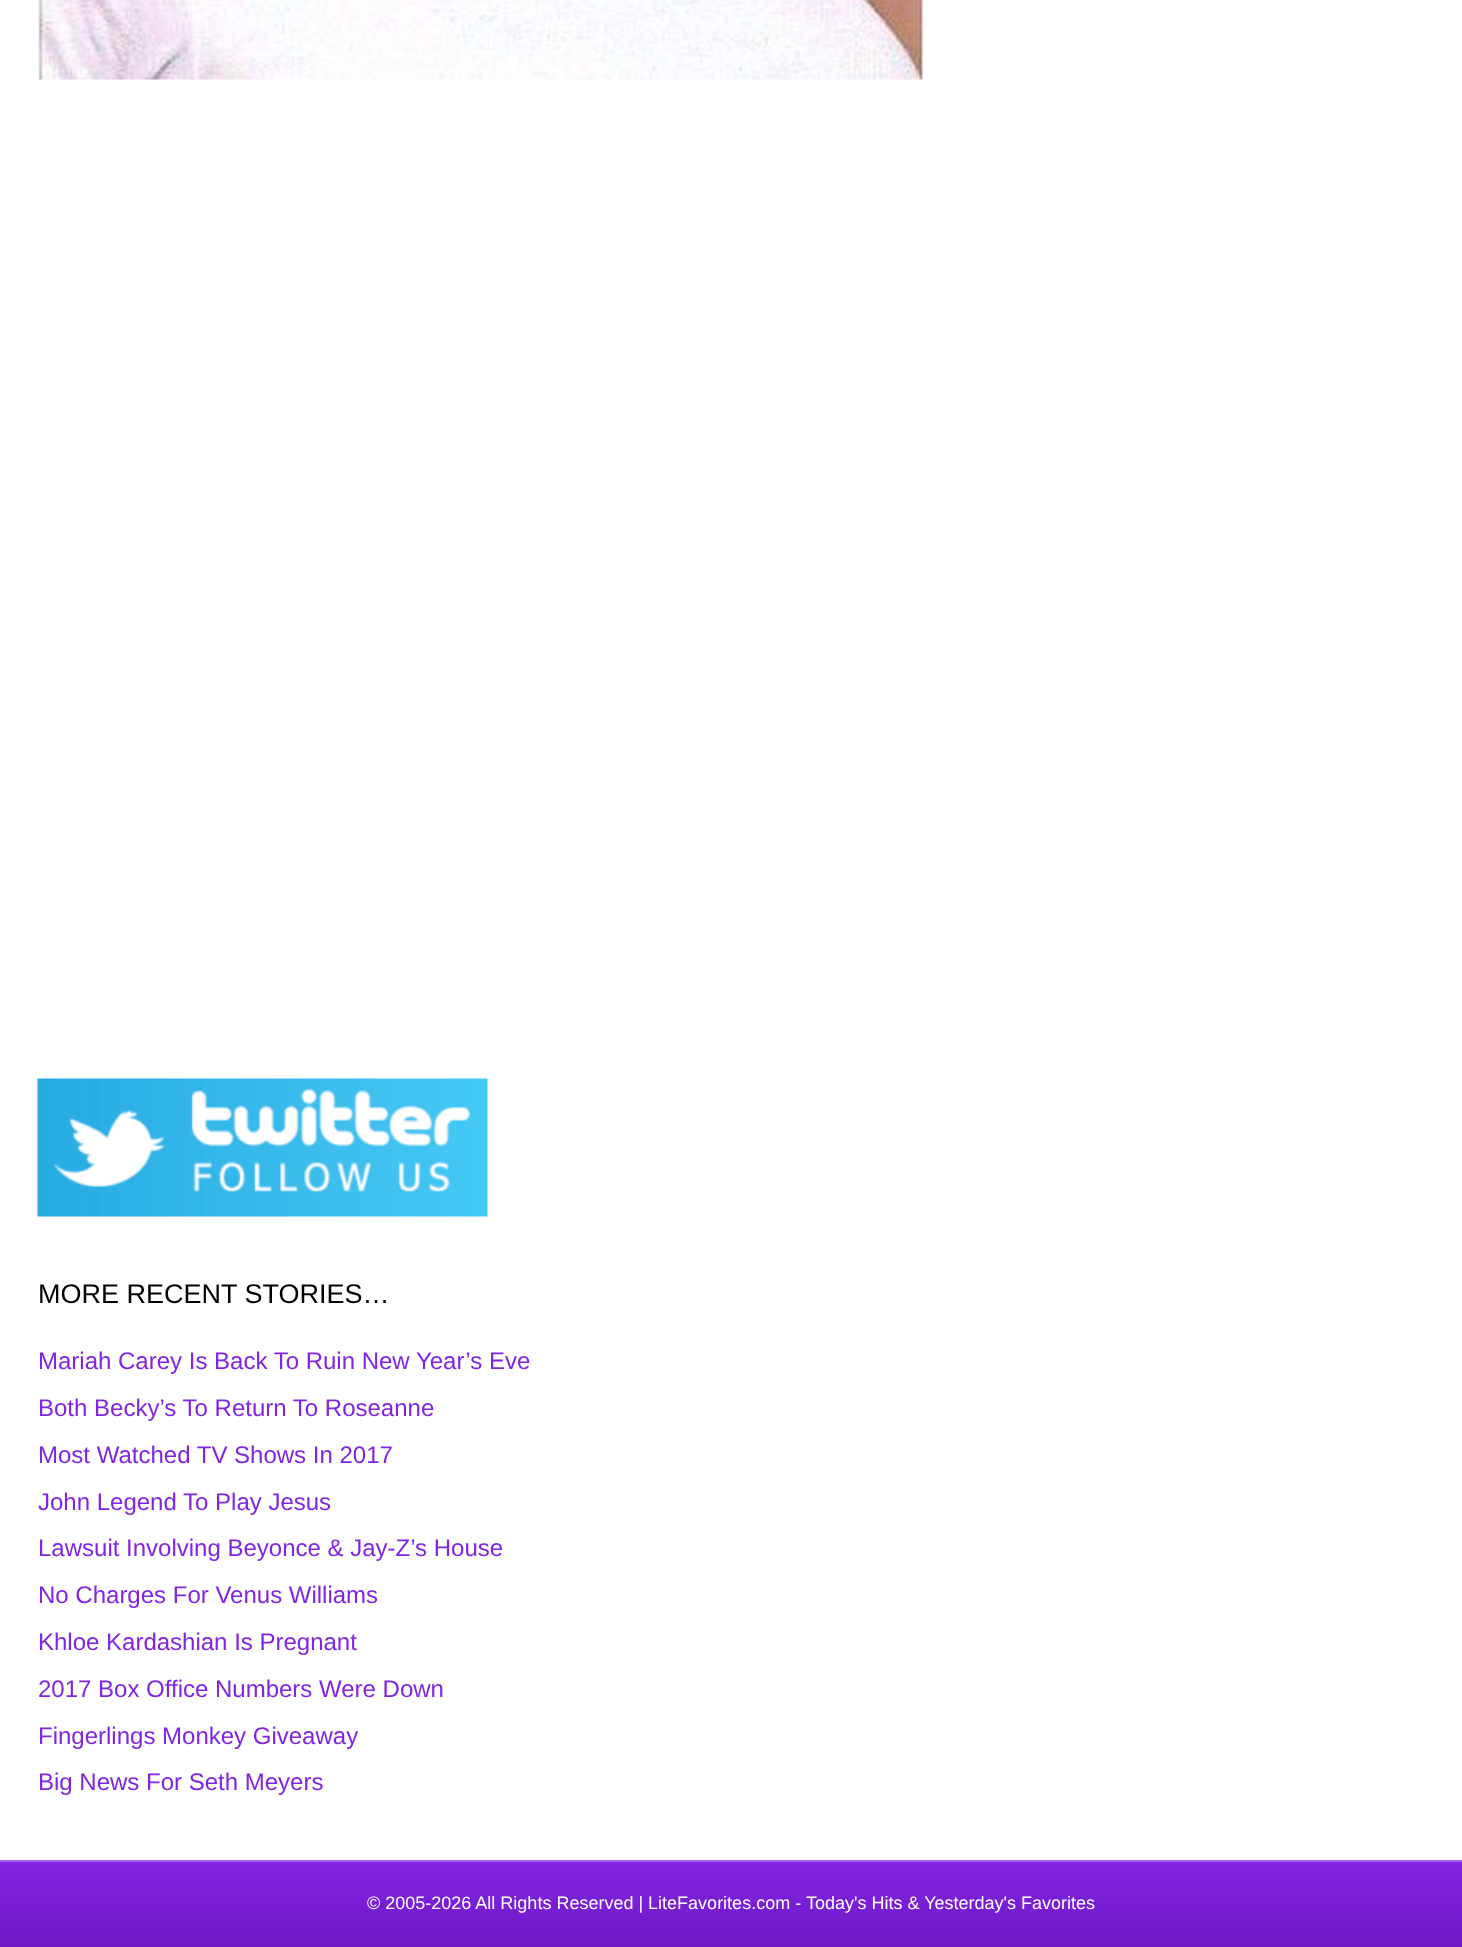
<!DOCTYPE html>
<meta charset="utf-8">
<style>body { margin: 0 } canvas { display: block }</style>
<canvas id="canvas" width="1462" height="1947"></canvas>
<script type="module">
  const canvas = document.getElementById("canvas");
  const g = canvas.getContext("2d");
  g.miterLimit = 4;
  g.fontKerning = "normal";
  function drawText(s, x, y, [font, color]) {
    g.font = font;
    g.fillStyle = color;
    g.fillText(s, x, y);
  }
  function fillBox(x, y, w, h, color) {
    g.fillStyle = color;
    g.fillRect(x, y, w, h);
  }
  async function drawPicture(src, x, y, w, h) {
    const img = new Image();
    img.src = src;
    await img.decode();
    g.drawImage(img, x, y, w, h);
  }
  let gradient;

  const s1 = ["27px Liberation Sans", "#000000"];
  const s2 = ["24px Liberation Sans", "#8224E3"];
  const s3 = ["18px Liberation Sans", "#FFFFFF"];

  fillBox(0, 0, 1462, 1947, "#FFFFFF");
  await drawPicture("pic1.png", 37, 0, 887, 80);
  await drawPicture("pic2.png", 37, 1078, 451, 139);
  drawText("MORE RECENT STORIES…", 38, 1303, s1);
  drawText("Mariah Carey Is Back To Ruin New Year’s Eve", 38, 1369, s2);
  drawText("Both Becky’s To Return To Roseanne", 38, 1416, s2);
  drawText("Most Watched TV Shows In 2017", 38, 1463, s2);
  drawText("John Legend To Play Jesus", 38, 1510, s2);
  drawText("Lawsuit Involving Beyonce & Jay-Z’s House", 38, 1556, s2);
  drawText("No Charges For Venus Williams", 38, 1603, s2);
  drawText("Khloe Kardashian Is Pregnant", 38, 1650, s2);
  drawText("2017 Box Office Numbers Were Down", 38, 1697, s2);
  drawText("Fingerlings Monkey Giveaway", 38, 1744, s2);
  drawText("Big News For Seth Meyers", 38, 1790, s2);
  gradient = g.createLinearGradient(731, 1862, 731, 1947);
  gradient.addColorStop(0, "#8224E3");
  gradient.addColorStop(1, "#6E19C5");
  g.fillStyle = gradient;
  g.fillRect(0, 1862, 1462, 85);
  fillBox(0, 1860, 1462, 2, "#A45FEB");
  drawText("© 2005-2026 All Rights Reserved | LiteFavorites.com -", 367, 1909, s3);
  drawText("Today's Hits & Yesterday's Favorites", 806, 1909, s3);
</script>
